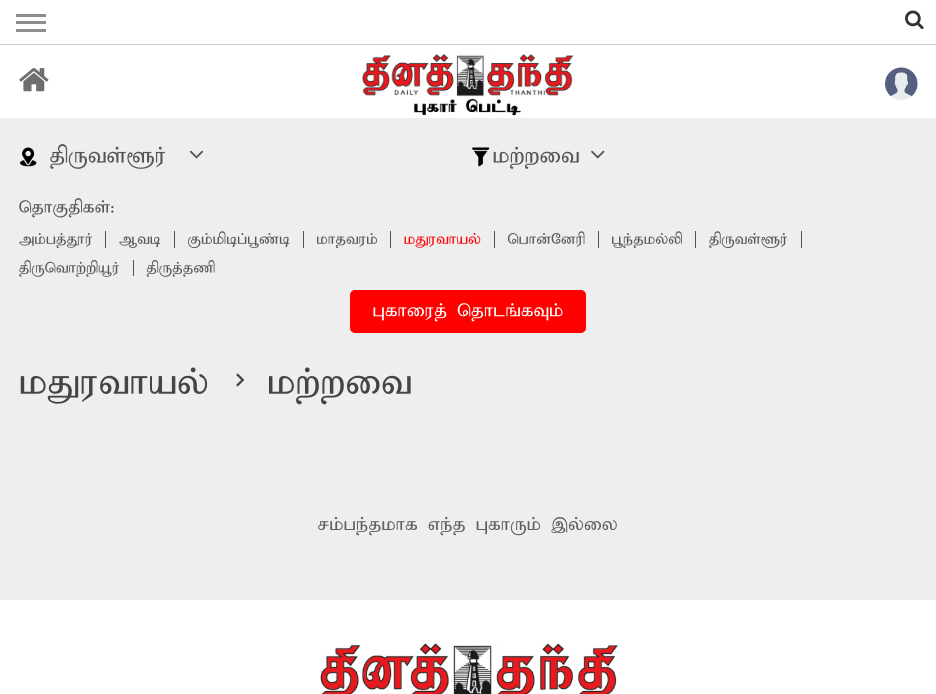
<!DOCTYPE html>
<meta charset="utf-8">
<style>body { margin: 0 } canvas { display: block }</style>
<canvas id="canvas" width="936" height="694"></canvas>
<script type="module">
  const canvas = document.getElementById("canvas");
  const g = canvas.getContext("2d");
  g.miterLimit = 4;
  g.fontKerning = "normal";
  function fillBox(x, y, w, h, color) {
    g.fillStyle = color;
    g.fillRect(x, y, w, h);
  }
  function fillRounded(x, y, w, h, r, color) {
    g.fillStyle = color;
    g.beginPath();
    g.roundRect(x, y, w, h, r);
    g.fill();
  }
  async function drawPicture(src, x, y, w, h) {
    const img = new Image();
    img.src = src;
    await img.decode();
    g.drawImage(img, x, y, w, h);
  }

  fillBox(0, 0, 936, 694, "#EEEEEE");
  fillBox(0, 0, 936, 118, "#FFFFFF");
  fillBox(0, 44, 936, 1, "#CCCCCC");
  fillBox(16, 29, 30, 3, "#8D8D8D");
  fillBox(16, 21, 30, 3, "#8D8D8D");
  fillBox(16, 14, 30, 3, "#8D8D8D");
  await drawPicture("pic1.png", 905, 10, 19, 20);
  await drawPicture("pic2.png", 19, 68, 30, 24);
  await drawPicture("pic3.png", 362, 53, 212, 63);
  await drawPicture("pic4.png", 885, 67, 33, 33);
  await drawPicture("pic5.png", 20, 147, 17, 20);
  await drawPicture("pic6.png", 50, 144, 116, 25);
  await drawPicture("pic7.png", 189, 150, 15, 9);
  await drawPicture("pic8.png", 472, 147, 18, 20);
  await drawPicture("pic9.png", 493, 146, 86, 23);
  await drawPicture("pic10.png", 591, 150, 14, 9);
  await drawPicture("pic11.png", 19, 198, 95, 20);
  fillBox(105, 231, 1, 17, "#555555");
  await drawPicture("pic12.png", 19, 233, 73, 15);
  fillBox(174, 231, 1, 17, "#555555");
  await drawPicture("pic13.png", 119, 236, 42, 12);
  fillBox(303, 231, 1, 17, "#555555");
  await drawPicture("pic14.png", 188, 231, 102, 17);
  fillBox(390, 231, 1, 17, "#555555");
  await drawPicture("pic15.png", 317, 233, 61, 15);
  fillBox(494, 231, 1, 17, "#555555");
  await drawPicture("pic16.png", 404, 233, 77, 15);
  fillBox(598, 231, 1, 17, "#555555");
  await drawPicture("pic17.png", 508, 231, 77, 16);
  fillBox(695, 231, 1, 17, "#555555");
  await drawPicture("pic18.png", 612, 231, 70, 17);
  fillBox(801, 231, 1, 17, "#555555");
  await drawPicture("pic19.png", 709, 231, 78, 17);
  fillBox(133, 260, 1, 16, "#555555");
  await drawPicture("pic20.png", 19, 260, 100, 17);
  await drawPicture("pic21.png", 146, 260, 69, 17);
  fillRounded(350, 290, 236, 43, 5, "#FF0000");
  await drawPicture("pic22.png", 373, 303, 190, 19);
  await drawPicture("pic23.png", 20, 367, 391, 38);
  await drawPicture("pic24.png", 318, 516, 299, 20);
  fillBox(0, 600, 936, 94, "#FFFFFF");
  await drawPicture("pic25.png", 320, 642, 298, 52);
</script>
